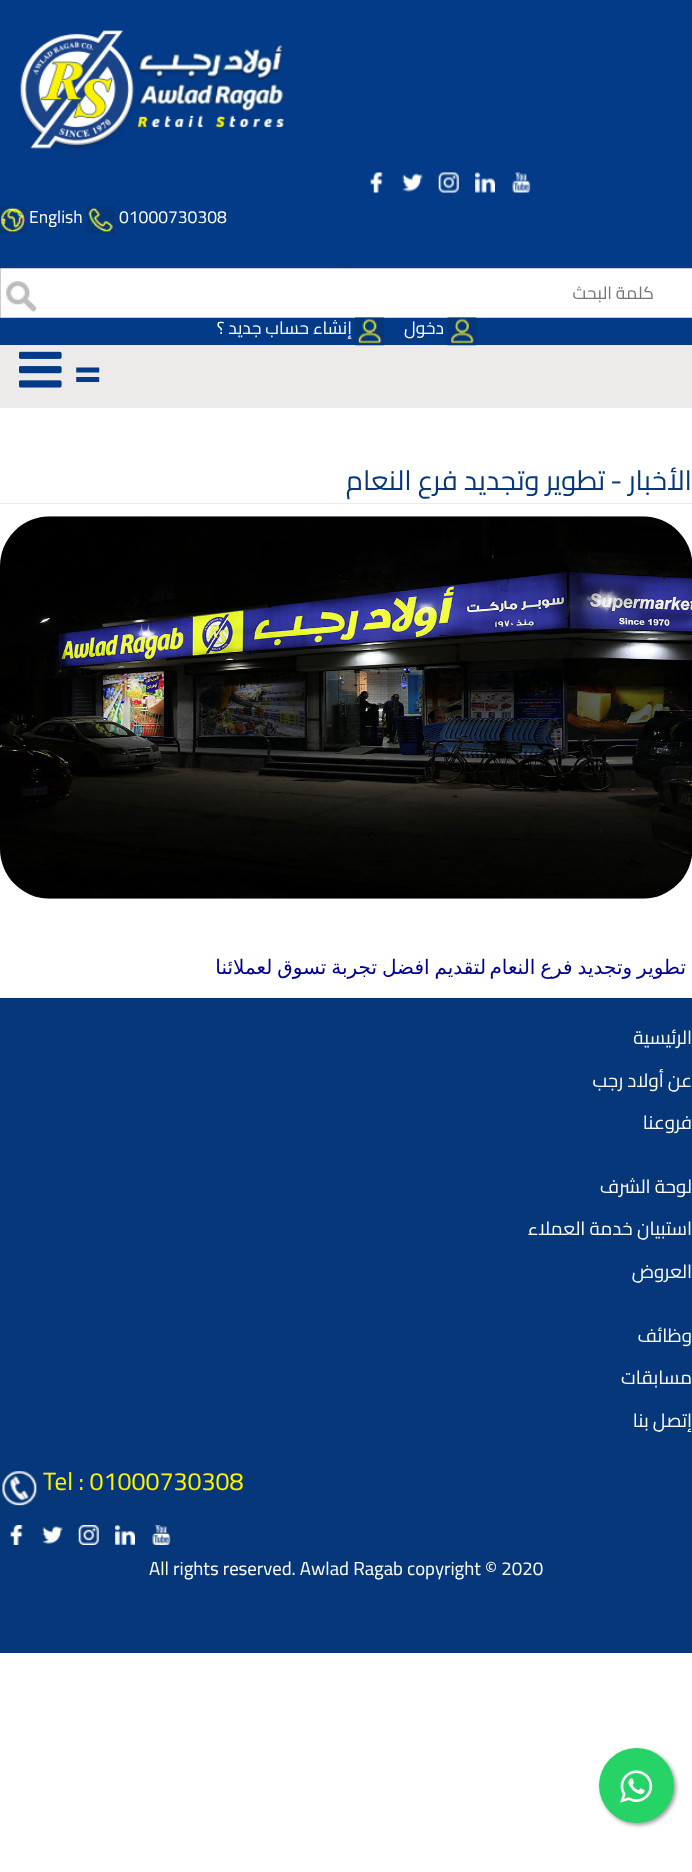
<!DOCTYPE html>
<meta charset="utf-8">
<style>body { margin: 0 } canvas { display: block }</style>
<canvas id="canvas" width="692" height="1872"></canvas>
<script type="module">
  const canvas = document.getElementById("canvas");
  const g = canvas.getContext("2d");
  g.miterLimit = 4;
  g.fontKerning = "normal";
  function drawText(s, x, y, [font, color]) {
    g.font = font;
    g.fillStyle = color;
    g.fillText(s, x, y);
  }
  function fillBox(x, y, w, h, color) {
    g.fillStyle = color;
    g.fillRect(x, y, w, h);
  }
  async function drawPicture(src, x, y, w, h) {
    const img = new Image();
    img.src = src;
    await img.decode();
    g.drawImage(img, x, y, w, h);
  }

  const s1 = ["17.5px Cairo", "#FFFFFF"];
  const s2 = ["17.5px Cairo", "#757575"];
  const s3 = ["bold 50px Cairo", "#033B89"];
  const s4 = ["27.5px Cairo", "#06377A"];
  const s5 = ["20px DejaVu Sans", "#000099"];
  const s6 = ["18.75px Cairo", "#FFFFFF"];
  const s7 = ["25px Cairo", "#FEF200"];

  fillBox(0, 0, 692, 1872, "#FFFFFF");
  fillBox(0, 0, 692, 345, "#033B89");
  await drawPicture("pic1.png", 19, 30, 265, 121);
  await drawPicture("pic2.png", 512, 172, 19, 21);
  await drawPicture("pic3.png", 475, 172, 20, 21);
  await drawPicture("pic4.png", 438, 172, 21, 21);
  await drawPicture("pic5.png", 402, 173, 21, 19);
  await drawPicture("pic6.png", 370, 172, 13, 21);
  drawText("01000730308", 119, 223, s1);
  await drawPicture("pic7.png", 86, 206, 29, 28);
  drawText("English", 29, 223, s1);
  await drawPicture("pic8.png", 0, 206, 25, 28);
  g.beginPath();
  g.rect(0.5, 268.5, 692, 49);
  g.fill();
  g.strokeStyle = "#CCCCCC";
  g.stroke();
  g.direction = "rtl";
  drawText("كلمة البحث", 654, 299, s2);
  await drawPicture("pic9.png", 6, 281, 31, 31);
  fillBox(0, 345, 692, 63, "#EDEAEA");
  await drawPicture("pic10.png", 447, 317, 30, 29);
  drawText("دخول", 444, 334, s1);
  await drawPicture("pic11.png", 355, 317, 29, 29);
  drawText("إنشاء حساب جديد ؟", 352, 334, s1);
  g.direction = "ltr";
  drawText("=", 73, 388, s3);
  await drawPicture("pic12.png", 19, 351, 43, 37);
  g.fillStyle = "#999999";
  g.filter = "blur(2px)";
  g.beginPath();
  g.roundRect(601, 1750, 75, 75, 37.5);
  g.fill();
  g.filter = "none";
  g.fillStyle = "#25D366";
  g.beginPath();
  g.arc(636.5, 1785.5, 37.5, 0, Math.PI * 2);
  g.fill();
  await drawPicture("pic13.png", 620, 1770, 33, 33);
  fillBox(0, 503, 692, 1, "#EDEAEA");
  g.direction = "rtl";
  drawText("الأخبار -", 692, 490, s4);
  drawText("تطوير وتجديد فرع النعام", 605, 490, s4);
  await drawPicture("pic14.png", 0, 516, 692, 383);
  g.wordSpacing = "-1.5px";
  drawText("تطوير وتجديد فرع النعام", 686, 974, s5);
  drawText("لتقديم افضل تجربة تسوق لعملائنا", 486, 974, s5);
  fillBox(0, 998, 692, 655, "#06377A");
  g.wordSpacing = "0px";
  drawText("الرئيسية", 692, 1044, s6);
  drawText("عن أولاد رجب", 692, 1087, s6);
  drawText("فروعنا", 692, 1129, s6);
  drawText("لوحة الشرف", 692, 1193, s6);
  drawText("استبيان خدمة العملاء", 692, 1235, s6);
  drawText("العروض", 692, 1278, s6);
  drawText("وظائف", 692, 1342, s6);
  drawText("مسابقات", 692, 1384, s6);
  drawText("إتصل بنا", 692, 1427, s6);
  g.direction = "ltr";
  drawText("Tel : 01000730308", 43, 1490, s7);
  await drawPicture("pic15.png", 2, 1471, 35, 35);
  await drawPicture("pic16.png", 152, 1525, 19, 20);
  await drawPicture("pic17.png", 115, 1525, 20, 20);
  await drawPicture("pic18.png", 78, 1525, 21, 20);
  await drawPicture("pic19.png", 42, 1526, 21, 18);
  await drawPicture("pic20.png", 10, 1525, 13, 20);
  drawText("All rights reserved. Awlad Ragab copyright © 2020", 149, 1575, s6);
</script>
